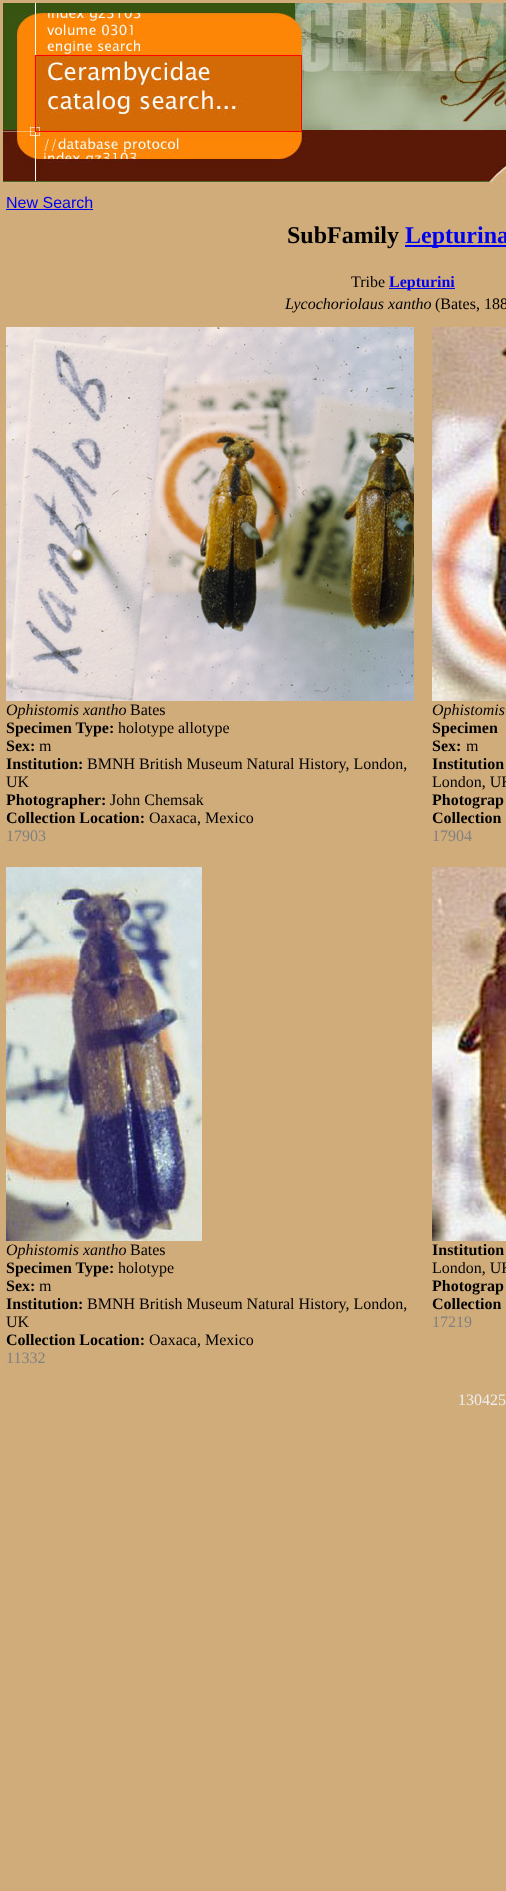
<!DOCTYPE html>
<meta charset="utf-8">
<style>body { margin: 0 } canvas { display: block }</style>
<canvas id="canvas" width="506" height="1891"></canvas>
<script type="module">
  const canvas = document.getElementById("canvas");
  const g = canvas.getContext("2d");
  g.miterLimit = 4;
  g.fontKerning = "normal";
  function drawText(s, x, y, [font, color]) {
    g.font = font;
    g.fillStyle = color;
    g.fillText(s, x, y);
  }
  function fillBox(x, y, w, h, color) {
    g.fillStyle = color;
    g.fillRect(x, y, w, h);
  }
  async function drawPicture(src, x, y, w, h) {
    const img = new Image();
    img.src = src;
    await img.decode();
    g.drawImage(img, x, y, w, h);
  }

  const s1 = ["16px Liberation Sans", "#0000EE"];
  const s2 = ["bold 24px Liberation Serif", "#000000"];
  const s3 = ["bold 24px Liberation Serif", "#0000EE"];
  const s4 = ["16px Liberation Serif", "#000000"];
  const s5 = ["bold 16px Liberation Serif", "#0000EE"];
  const s6 = ["italic 16px Liberation Serif", "#000000"];
  const s7 = ["bold 16px Liberation Serif", "#000000"];
  const s8 = ["16px Liberation Serif", "#808080"];
  const s9 = ["16px Liberation Serif", "#EEEEEE"];

  fillBox(0, 0, 506, 1891, "#D1AC7B");
  await drawPicture("pic1.png", 3, 3, 503, 184);
  drawText("New Search", 6, 208, s1);
  fillBox(6, 209, 87, 1, "#0000EE");
  drawText("SubFamily", 287, 243, s2);
  fillBox(405, 245, 101, 2, "#0000EE");
  drawText("Lepturina", 405, 243, s3);
  drawText("Tribe", 351, 287, s4);
  fillBox(389, 288, 66, 1, "#0000EE");
  drawText("Lepturini", 389, 287, s5);
  drawText("Lycochoriolaus xantho", 285, 309, s6);
  drawText("(Bates, 188", 435, 309, s4);
  await drawPicture("pic2.png", 6, 327, 408, 374);
  drawText("Ophistomis xantho", 6, 715, s6);
  drawText("Bates", 130, 715, s4);
  drawText("Specimen Type:", 6, 733, s7);
  drawText("holotype allotype", 118, 733, s4);
  drawText("Sex:", 6, 751, s7);
  drawText("m", 39, 751, s4);
  drawText("Institution:", 6, 769, s7);
  drawText("BMNH British Museum Natural History, London,", 87, 769, s4);
  drawText("UK", 6, 787, s4);
  drawText("Photographer:", 6, 805, s7);
  drawText("John Chemsak", 110, 805, s4);
  drawText("Collection Location:", 6, 823, s7);
  drawText("Oaxaca, Mexico", 149, 823, s4);
  drawText("17903", 6, 841, s8);
  await drawPicture("pic3.png", 432, 327, 74, 374);
  drawText("Ophistomis", 432, 715, s6);
  drawText("Specimen", 432, 733, s7);
  drawText("Sex:", 432, 751, s7);
  drawText("m", 466, 751, s4);
  drawText("Institution", 432, 769, s7);
  drawText("London, UK", 432, 787, s4);
  drawText("Photograp", 432, 805, s7);
  drawText("Collection", 432, 823, s7);
  drawText("17904", 432, 841, s8);
  await drawPicture("pic4.png", 6, 867, 196, 374);
  drawText("Ophistomis xantho", 6, 1255, s6);
  drawText("Bates", 130, 1255, s4);
  drawText("Specimen Type:", 6, 1273, s7);
  drawText("holotype", 118, 1273, s4);
  drawText("Sex:", 6, 1291, s7);
  drawText("m", 39, 1291, s4);
  drawText("Institution:", 6, 1309, s7);
  drawText("BMNH British Museum Natural History, London,", 87, 1309, s4);
  drawText("UK", 6, 1327, s4);
  drawText("Collection Location:", 6, 1345, s7);
  drawText("Oaxaca, Mexico", 149, 1345, s4);
  drawText("11332", 6, 1363, s8);
  await drawPicture("pic5.png", 432, 867, 74, 374);
  drawText("Institution", 432, 1255, s7);
  drawText("London, UK", 432, 1273, s4);
  drawText("Photograp", 432, 1291, s7);
  drawText("Collection", 432, 1309, s7);
  drawText("17219", 432, 1327, s8);
  drawText("130425", 458, 1405, s9);
</script>
